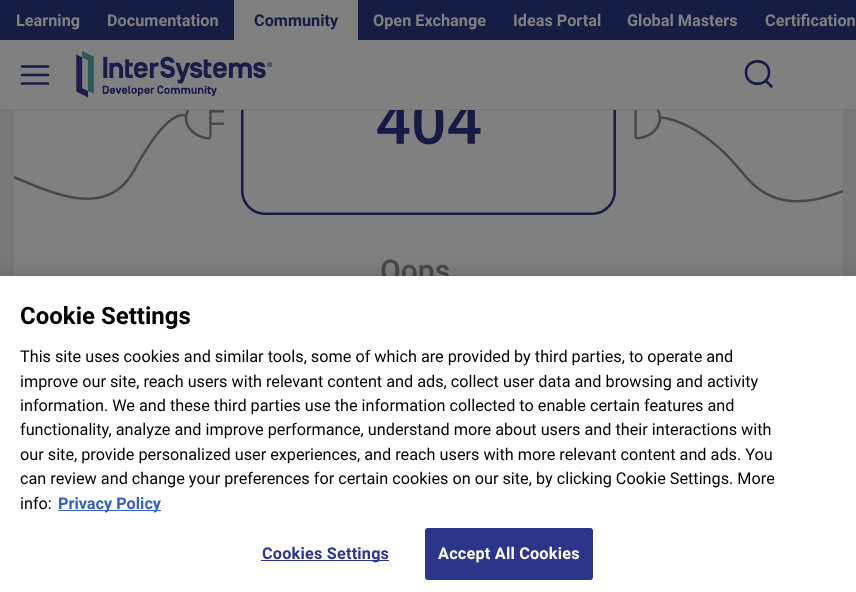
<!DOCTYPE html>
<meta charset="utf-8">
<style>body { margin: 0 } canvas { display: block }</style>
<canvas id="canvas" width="856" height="592"></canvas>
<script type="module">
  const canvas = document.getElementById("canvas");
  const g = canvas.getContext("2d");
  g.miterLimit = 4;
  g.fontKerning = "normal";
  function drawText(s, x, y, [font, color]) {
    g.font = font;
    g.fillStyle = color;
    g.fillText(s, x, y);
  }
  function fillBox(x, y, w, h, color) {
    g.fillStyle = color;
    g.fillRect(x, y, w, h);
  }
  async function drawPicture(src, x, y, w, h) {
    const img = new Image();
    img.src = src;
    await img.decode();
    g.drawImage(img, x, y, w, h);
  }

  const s1 = ["bold 16.25px Roboto", "#808080"];
  const s2 = ["bold 16.25px Roboto", "#161B45"];
  const s3 = ["500 30px Roboto", "#484848"];
  const s4 = ["bold 24px Roboto", "#000000"];
  const s5 = ["16.25px Roboto", "#000000"];
  const s6 = ["bold 16.25px Roboto", "#3860BE"];
  const s7 = ["bold 16.25px Roboto", "#2B3589"];
  const s8 = ["bold 16.25px Roboto", "#FFFFFF"];

  fillBox(0, 0, 856, 592, "#787879");
  fillBox(0, 40, 856, 69, "#808080");
  fillBox(0, 0, 856, 40, "#151D44");
  drawText("Learning", 16, 26, s1);
  drawText("Documentation", 107, 26, s1);
  fillBox(234, 0, 124, 40, "#808080");
  drawText("Community", 254, 26, s2);
  drawText("Open Exchange", 373, 26, s1);
  drawText("Ideas Portal", 513, 26, s1);
  drawText("Global Masters", 627, 26, s1);
  drawText("Certification", 765, 26, s1);
  g.beginPath();
  g.moveTo(22, 75);
  g.lineTo(48, 75);
  g.moveTo(22, 66.5);
  g.lineTo(48, 66.5);
  g.moveTo(22, 83.5);
  g.lineTo(48, 83.5);
  g.strokeStyle = "#161B45";
  g.lineWidth = 2.5;
  g.lineCap = "round";
  g.lineJoin = "round";
  g.stroke();
  await drawPicture("pic1.png", 76, 51, 197, 47);
  g.beginPath();
  g.moveTo(771.5, 86.5);
  g.lineTo(765.5, 80.5);
  g.moveTo(769, 72.5);
  g.bezierCurveTo(769, 87.5, 746, 87.5, 746, 72.5);
  g.bezierCurveTo(746, 57.5, 769, 57.5, 769, 72.5);
  g.closePath();
  g.stroke();
  fillBox(14, 110, 829, 166, "#808080");
  await drawPicture("pic2.png", 14, 110, 829, 105);
  drawText("Oops", 380, 281, s3);
  g.fillStyle = "rgba(0, 0, 0, 0.2)";
  g.filter = "blur(11px)";
  g.beginPath();
  g.rect(0, 276, 856, 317);
  g.fill();
  g.filter = "none";
  fillBox(0, 276, 856, 316, "#FFFFFF");
  drawText("Cookie Settings", 20, 324, s4);
  drawText("This site uses cookies and similar tools, some of which are provided by third parties, to operate and", 20, 362, s5);
  drawText("improve our site, reach users with relevant content and ads, collect user data and browsing and activity", 20, 387, s5);
  drawText("information. We and these third parties use the information collected to enable certain features and", 20, 411, s5);
  drawText("functionality, analyze and improve performance, understand more about users and their interactions with", 20, 435, s5);
  drawText("our site, provide personalized user experiences, and reach users with more relevant content and ads. You", 20, 460, s5);
  drawText("can review and change your preferences for certain cookies on our site, by clicking Cookie Settings. More", 20, 484, s5);
  drawText("info:", 20, 509, s5);
  fillBox(58, 510, 103, 1, "#3860BE");
  drawText("Privacy Policy", 58, 509, s6);
  fillBox(261, 560, 128, 1, "#2B3589");
  g.letterSpacing = "0.2px";
  drawText("Cookies Settings", 262, 559, s7);
  g.beginPath();
  g.roundRect(425.5, 528.5, 167, 51, 2);
  g.fill();
  g.strokeStyle = "#2B3589";
  g.lineWidth = 1;
  g.lineJoin = "miter";
  g.stroke();
  drawText("Accept All Cookies", 438, 559, s8);
</script>
